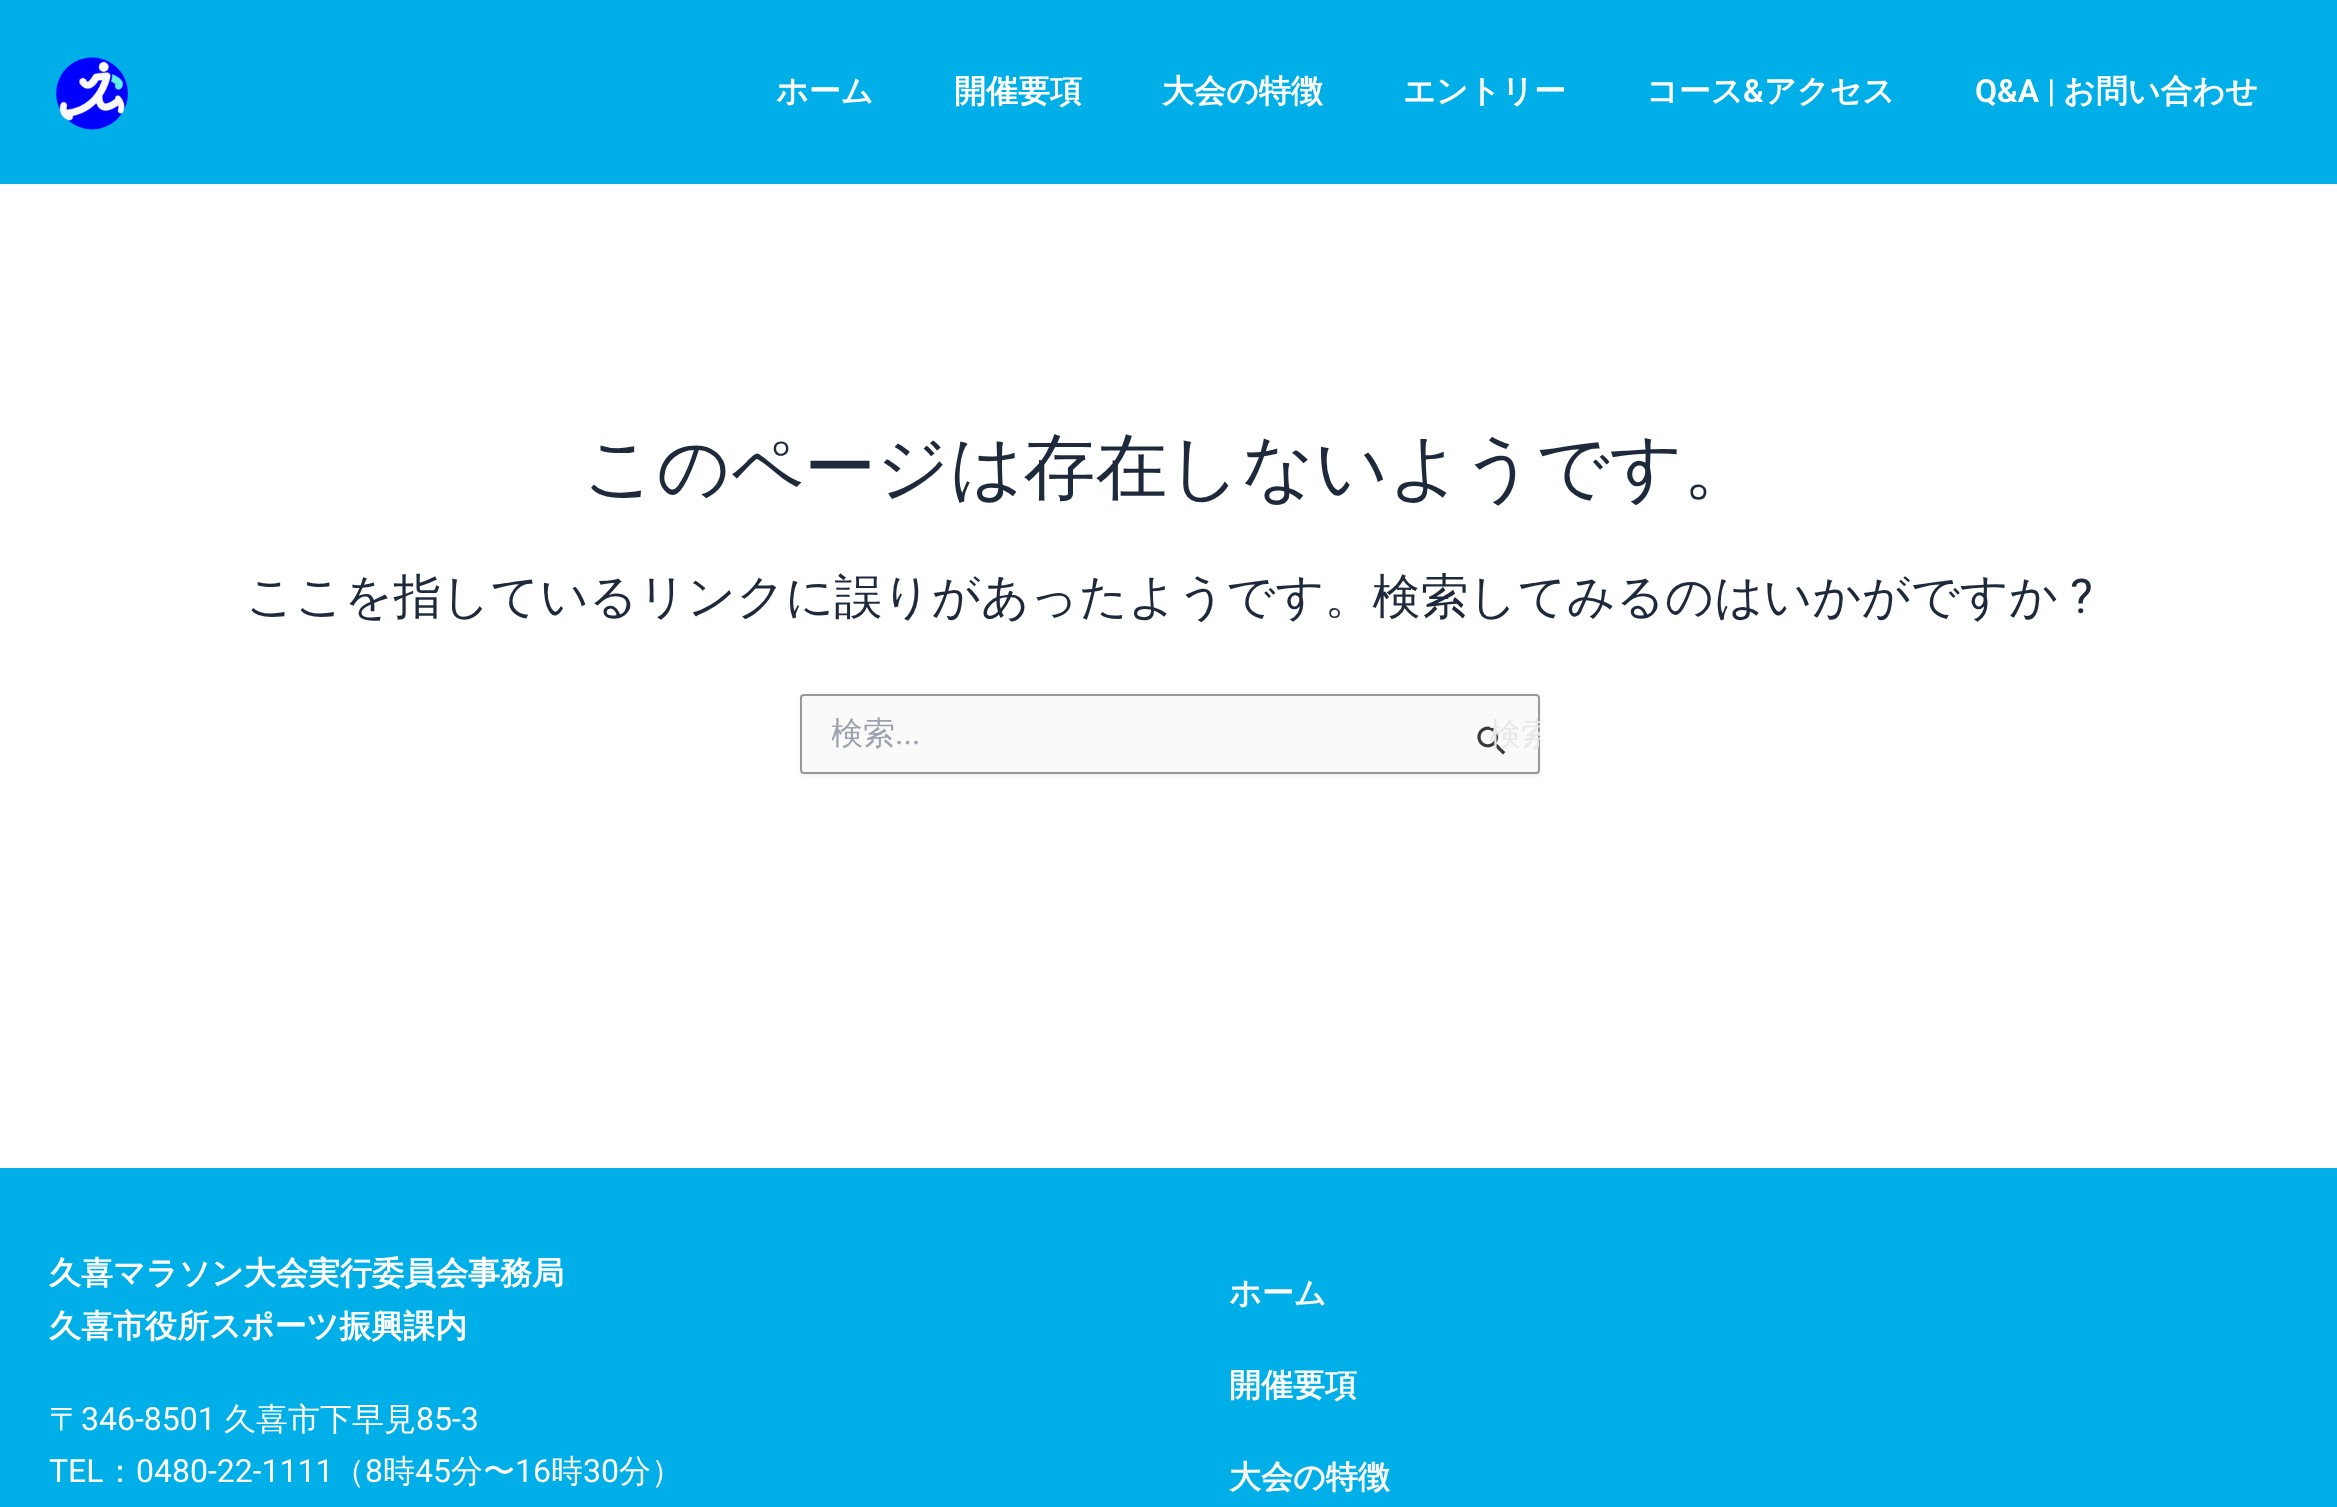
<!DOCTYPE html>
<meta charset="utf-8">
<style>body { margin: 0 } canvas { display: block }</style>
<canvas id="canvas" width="2337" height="1507"></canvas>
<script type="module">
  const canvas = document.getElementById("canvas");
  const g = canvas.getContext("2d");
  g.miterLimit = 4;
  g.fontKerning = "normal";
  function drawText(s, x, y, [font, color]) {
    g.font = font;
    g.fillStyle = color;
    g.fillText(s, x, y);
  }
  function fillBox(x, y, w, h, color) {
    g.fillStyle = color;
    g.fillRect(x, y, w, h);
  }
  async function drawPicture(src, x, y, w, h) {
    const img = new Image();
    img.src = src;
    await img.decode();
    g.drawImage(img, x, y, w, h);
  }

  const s1 = ["bold 32px WenQuanYi Zen Hei", "#FFFFFF"];
  const s2 = ["600 32px Roboto", "#FFFFFF"];
  const s3 = ["500 72px WenQuanYi Zen Hei", "#1E293B"];
  const s4 = ["500 48px WenQuanYi Zen Hei", "#1E293B"];
  const s5 = ["48px Roboto", "#1E293B"];
  const s6 = ["500 32px WenQuanYi Zen Hei", "#9CA3AF"];
  const s7 = ["32px Roboto", "#9CA3AF"];
  const s8 = ["500 32px WenQuanYi Zen Hei", "#E8E8E8"];
  const s9 = ["500 32px WenQuanYi Zen Hei", "#FFFFFF"];
  const s10 = ["32px Roboto", "#FFFFFF"];
  const s11 = ["bold 32px WenQuanYi Zen Hei", "#F8F8F8"];

  fillBox(0, 0, 2337, 1507, "#FFFFFF");
  fillBox(0, 0, 2337, 184, "#00AFE8");
  await drawPicture("pic1.png", 56, 57, 72, 73);
  drawText("ホーム", 776, 102, s1);
  drawText("開催要項", 954, 102, s1);
  drawText("大会の特徴", 1162, 102, s1);
  drawText("エントリー", 1403, 102, s1);
  drawText("コース", 1646, 102, s1);
  drawText("&", 1743, 102, s2);
  drawText("アクセス", 1764, 102, s1);
  drawText("Q&A |", 1975, 102, s2);
  drawText("お問い合わせ", 2063, 102, s1);
  drawText("このページは存在しないようです。", 583, 492, s3);
  drawText("ここを指しているリンクに誤りがあったようです。検索してみるのはいかがですか", 246, 613, s4);
  drawText("?", 2070, 613, s5);
  g.fillStyle = "rgba(0, 0, 0, 0.05)";
  g.filter = "blur(2px)";
  g.beginPath();
  g.roundRect(800, 696, 740, 80, 4);
  g.fill();
  g.filter = "none";
  g.fillStyle = "#FAFAFA";
  g.beginPath();
  g.roundRect(801, 695, 738, 78, 3);
  g.fill();
  g.strokeStyle = "#989898";
  g.lineWidth = 2;
  g.stroke();
  g.save();
  g.beginPath();
  g.rect(832, 714, 608, 42);
  g.clip();
  drawText("検索", 831, 744, s6);
  g.restore();
  drawText("...", 895, 744, s7);
  await drawPicture("pic2.png", 1477, 726, 29, 29);
  g.save();
  g.beginPath();
  g.roundRect(1450, 694, 90, 84, 4);
  g.clip();
  drawText("検索", 1489, 745, s8);
  g.restore();
  fillBox(0, 1168, 2337, 339, "#00AFE8");
  drawText("久喜マラソン大会実行委員会事務局", 49, 1284, s1);
  drawText("久喜市役所スポーツ振興課内", 49, 1337, s1);
  drawText("〒", 49, 1430, s9);
  drawText("346-8501", 81, 1430, s10);
  drawText("久喜市下早見", 224, 1430, s9);
  drawText("85-3", 416, 1430, s10);
  drawText("TEL", 49, 1482, s10);
  drawText("：", 104, 1482, s9);
  drawText("0480-22-1111", 136, 1482, s10);
  drawText("（", 333, 1482, s9);
  drawText("8", 365, 1482, s10);
  drawText("時", 383, 1482, s9);
  drawText("45", 415, 1482, s10);
  drawText("分〜", 451, 1482, s9);
  drawText("16", 515, 1482, s10);
  drawText("時", 551, 1482, s9);
  drawText("30", 583, 1482, s10);
  drawText("分）", 619, 1482, s9);
  drawText("ホーム", 1229, 1304, s11);
  drawText("開催要項", 1229, 1396, s11);
  drawText("大会の特徴", 1229, 1488, s11);
</script>
